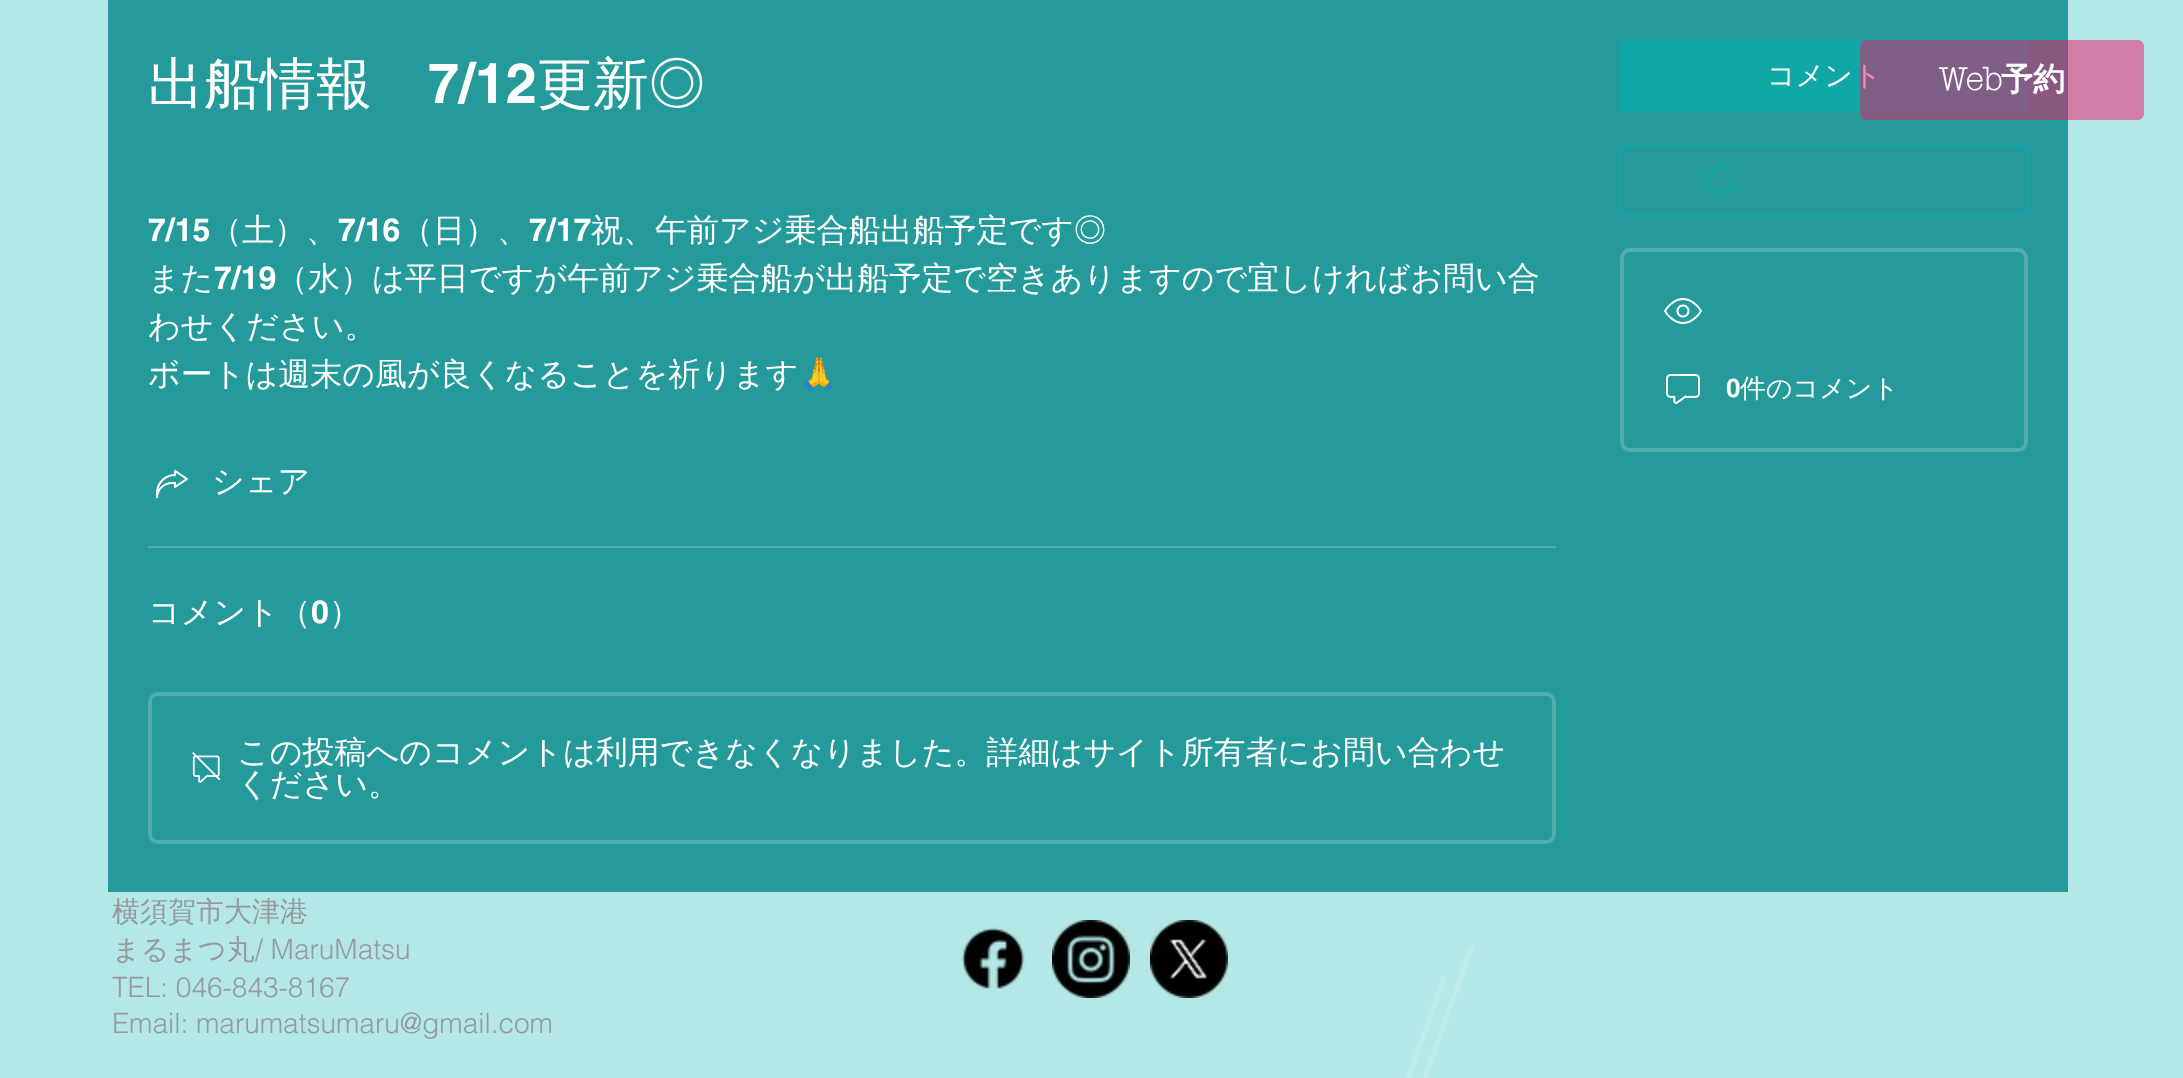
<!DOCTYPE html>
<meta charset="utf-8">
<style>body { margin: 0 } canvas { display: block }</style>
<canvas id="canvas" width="2183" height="1078"></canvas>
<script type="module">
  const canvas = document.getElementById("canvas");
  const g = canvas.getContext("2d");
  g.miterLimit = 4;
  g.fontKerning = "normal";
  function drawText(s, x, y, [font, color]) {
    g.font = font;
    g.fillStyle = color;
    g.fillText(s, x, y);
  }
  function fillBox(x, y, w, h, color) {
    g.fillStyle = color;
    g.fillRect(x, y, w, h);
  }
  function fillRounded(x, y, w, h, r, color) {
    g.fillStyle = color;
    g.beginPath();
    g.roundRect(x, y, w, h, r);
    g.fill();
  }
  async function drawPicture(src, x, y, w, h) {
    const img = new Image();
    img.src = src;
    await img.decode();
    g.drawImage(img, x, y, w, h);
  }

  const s1 = ["500 56px WenQuanYi Zen Hei", "#FFFFFF"];
  const s2 = ["bold 56px helvetica", "#FFFFFF"];
  const s3 = ["bold 32px helvetica", "#FFFFFF"];
  const s4 = ["500 32px WenQuanYi Zen Hei", "#FFFFFF"];
  const s5 = ["32px Noto Color Emoji", "#FFFFFF"];
  const s6 = ["500 28px WenQuanYi Zen Hei", "#FFFFFF"];
  const s7 = ["bold 26px helvetica", "#FFFFFF"];
  const s8 = ["500 26px WenQuanYi Zen Hei", "#FFFFFF"];
  const s9 = ["bold 32px 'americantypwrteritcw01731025'", "#FFFFFF"];
  const s10 = ["bold 32px WenQuanYi Zen Hei", "#FFFFFF"];
  const s11 = ["500 28px WenQuanYi Zen Hei", "#969A9C"];
  const s12 = ["300 28px helvetica", "#969A9C"];

  fillBox(0, 0, 2183, 1078, "#B4E8E7");
  fillBox(108, 0, 1960, 892, "#259A9A");
  drawText("出船情報", 148, 103, s1);
  drawText("7/12", 428, 103, s2);
  drawText("更新◎", 537, 103, s1);
  drawText("7/15", 148, 241, s3);
  drawText("（土）、", 210, 241, s4);
  drawText("7/16", 338, 241, s3);
  drawText("（日）、", 401, 241, s4);
  drawText("7/17", 529, 241, s3);
  drawText("祝、午前アジ乗合船出船予定です◎", 591, 241, s4);
  drawText("また", 148, 289, s4);
  drawText("7/19", 214, 289, s3);
  drawText("（水）は平日ですが午前アジ乗合船が出船予定で空きありますので宜しければお問い合", 276, 289, s4);
  drawText("わせください。", 148, 337, s4);
  drawText("ボートは週末の風が良くなることを祈ります", 148, 385, s4);
  drawText("🙏", 799, 385, s5);
  await drawPicture("pic1.png", 156, 470, 32, 28);
  drawText("シェア", 212, 492, s4);
  fillBox(148, 546, 1408, 2, "#51AEAE");
  drawText("コメント（", 148, 623, s4);
  drawText("0", 311, 623, s3);
  drawText("）", 329, 623, s4);
  g.beginPath();
  g.roundRect(150, 694, 1404, 148, 8);
  g.strokeStyle = "#51AEAE";
  g.lineWidth = 4;
  g.stroke();
  await drawPicture("pic2.png", 192, 752, 28, 31);
  drawText("この投稿へのコメントは利用できなくなりました。詳細はサイト所有者にお問い合わせ", 237, 763, s4);
  drawText("ください。", 237, 795, s4);
  fillBox(1620, 40, 408, 72, "#10A8A7");
  drawText("コメント", 1767, 85, s6);
  g.strokeStyle = "#10A8A7";
  g.lineWidth = 2;
  g.strokeRect(1621, 145, 406, 70);
  await drawPicture("pic3.png", 1706, 162, 30, 34);
  g.beginPath();
  g.roundRect(1622, 250, 404, 200, 8);
  g.strokeStyle = "#51AEAE";
  g.lineWidth = 4;
  g.stroke();
  await drawPicture("pic4.png", 1664, 298, 38, 26);
  await drawPicture("pic5.png", 1666, 374, 34, 30);
  drawText("0", 1726, 397, s7);
  drawText("件のコメント", 1740, 397, s8);
  fillBox(2068, 0, 4, 892, "#B9E5E5");
  fillRounded(1860, 40, 284, 80, 6, "rgba(237, 21, 102, 0.5)");
  drawText("Web", 1939, 90, s9);
  drawText("予約", 2001, 90, s10);
  drawText("横須賀市大津港", 112, 921, s11);
  drawText("まるまつ丸", 112, 959, s11);
  drawText("/ MaruMatsu", 255, 959, s12);
  drawText("TEL: 046-843-8167", 112, 997, s12);
  drawText("Email: marumatsumaru@gmail.com", 112, 1033, s12);
  await drawPicture("pic6.png", 961, 927, 64, 62);
  await drawPicture("pic7.png", 1052, 920, 78, 78);
  await drawPicture("pic8.png", 1150, 920, 78, 78);
  await drawPicture("pic9.png", 1406, 946, 68, 132);
</script>
